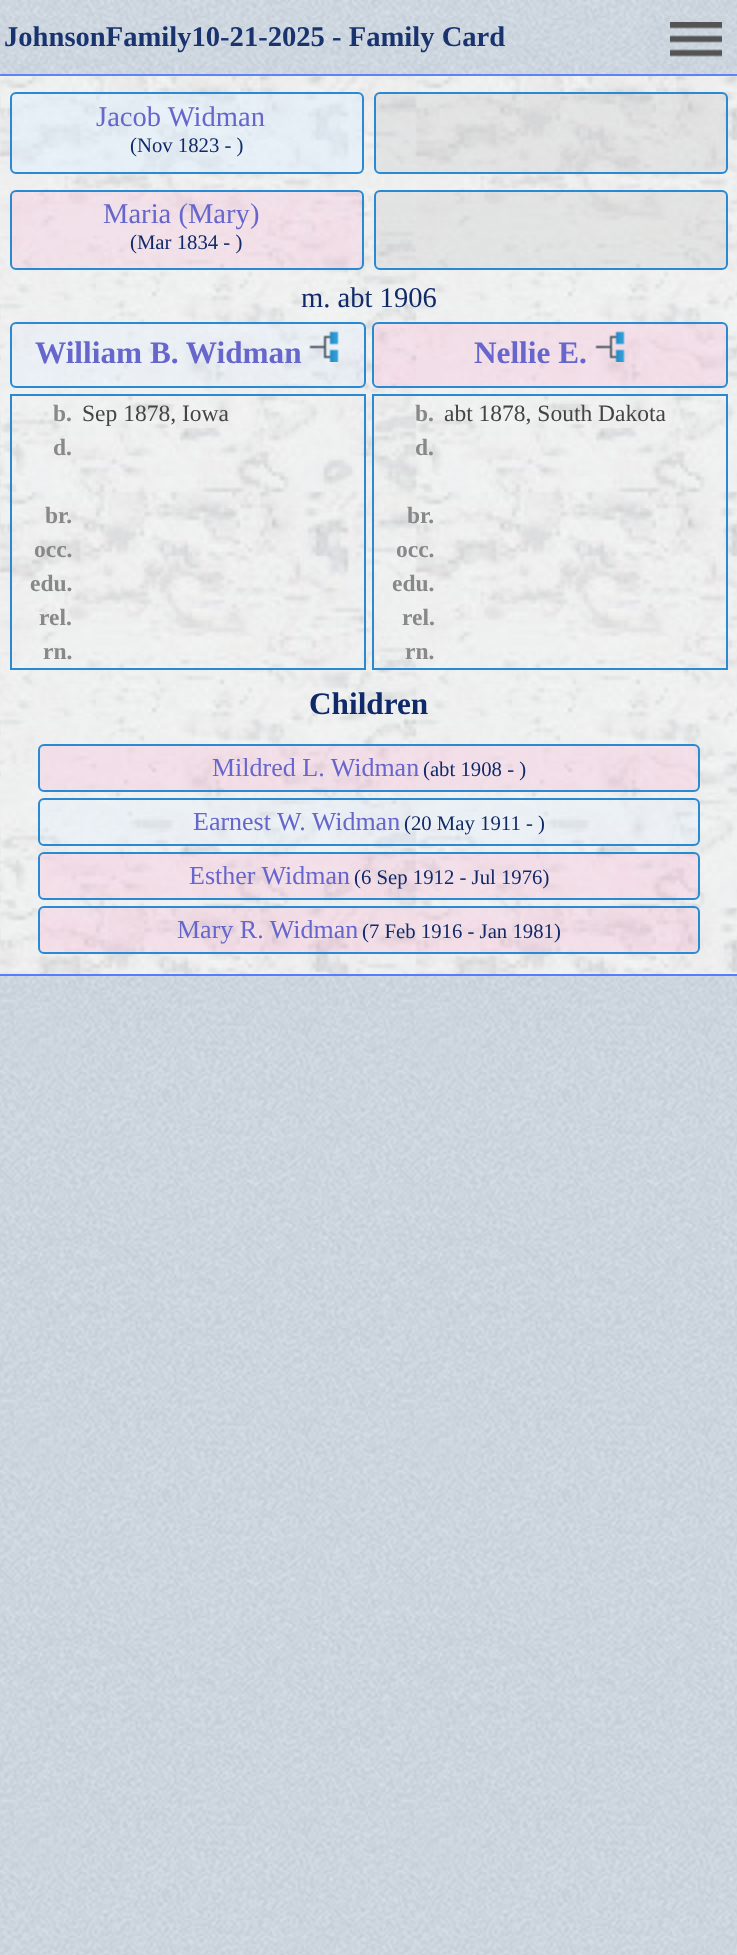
<!DOCTYPE html>
<meta charset="utf-8">
<style>body { margin: 0 } canvas { display: block }</style>
<canvas id="canvas" width="737" height="1955"></canvas>
<script type="module">
  const canvas = document.getElementById("canvas");
  const g = canvas.getContext("2d");
  g.miterLimit = 4;
  g.fontKerning = "normal";
  function drawText(s, x, y, [font, color]) {
    g.font = font;
    g.fillStyle = color;
    g.fillText(s, x, y);
  }
  function fillBox(x, y, w, h, color) {
    g.fillStyle = color;
    g.fillRect(x, y, w, h);
  }
  async function drawPicture(src, x, y, w, h) {
    const img = new Image();
    img.src = src;
    await img.decode();
    g.drawImage(img, x, y, w, h);
  }

  const s1 = ["bold 28.6px Liberation Serif", "#19336F"];
  const s2 = ["28.6px Liberation Serif", "#6666CC"];
  const s3 = ["20.75px Liberation Serif", "#102A69"];
  const s4 = ["28.6px Liberation Serif", "#102A69"];
  const s5 = ["bold 31.25px Liberation Serif", "#6666CC"];
  const s6 = ["bold 23.5px Liberation Serif", "#888888"];
  const s7 = ["23.5px Liberation Serif", "#444444"];
  const s8 = ["bold 31.25px Liberation Serif", "#102A69"];
  const s9 = ["26px Liberation Serif", "#6666CC"];

  fillBox(0, 0, 737, 1955, "#FFFFFF");
  await drawPicture("pic1.png", 0, 0, 737, 1955);
  await drawPicture("pic5.png", 0, 74, 737, 900);
  await drawPicture("pic2.png", 0, 0, 737, 76);
  fillBox(0, 74, 737, 2, "rgba(86, 126, 252, 0.95)");
  drawText("JohnsonFamily10-21-2025 - Family Card", 4, 46, s1);
  await drawPicture("pic3.png", 650, 0, 87, 70);
  await drawPicture("pic4.png", 670, 22, 52, 35);
  fillBox(0, 974, 737, 2, "#567EFC");
  g.fillStyle = "rgba(224, 239, 254, 0.51)";
  g.beginPath();
  g.roundRect(11, 93, 352, 80, 5);
  g.fill();
  g.strokeStyle = "#2989D3";
  g.lineWidth = 2;
  g.stroke();
  drawText("Jacob Widman", 96, 126, s2);
  drawText("(Nov 1823 - )", 130, 152, s3);
  g.fillStyle = "rgba(200, 200, 200, 0.3)";
  g.beginPath();
  g.roundRect(375, 93, 352, 80, 5);
  g.fill();
  g.stroke();
  g.fillStyle = "rgba(252, 183, 214, 0.28)";
  g.beginPath();
  g.roundRect(11, 191, 352, 78, 5);
  g.fill();
  g.stroke();
  drawText("Maria (Mary)", 103, 223, s2);
  drawText("(Mar 1834 - )", 130, 249, s3);
  g.fillStyle = "rgba(200, 200, 200, 0.3)";
  g.beginPath();
  g.roundRect(375, 191, 352, 78, 5);
  g.fill();
  g.stroke();
  drawText("m. abt 1906", 301, 307, s4);
  g.fillStyle = "rgba(224, 239, 254, 0.3)";
  g.beginPath();
  g.roundRect(11, 323, 354, 64, 5);
  g.fill();
  g.stroke();
  drawText("William B. Widman", 35, 363, s5);
  await drawPicture("pic6.png", 309, 331, 30, 31);
  g.fillStyle = "rgba(252, 183, 214, 0.3)";
  g.beginPath();
  g.roundRect(373, 323, 354, 64, 5);
  g.fill();
  g.stroke();
  drawText("Nellie E.", 474, 363, s5);
  await drawPicture("pic7.png", 595, 331, 30, 31);
  g.strokeRect(11, 395, 354, 274);
  drawText("b.", 53, 421, s6);
  drawText("Sep 1878, Iowa", 82, 421, s7);
  drawText("d.", 53, 455, s6);
  drawText("br.", 45, 523, s6);
  drawText("occ.", 34, 557, s6);
  drawText("edu.", 30, 591, s6);
  drawText("rel.", 39, 625, s6);
  drawText("rn.", 43, 659, s6);
  g.strokeRect(373, 395, 354, 274);
  drawText("b.", 415, 421, s6);
  drawText("abt 1878, South Dakota", 444, 421, s7);
  drawText("d.", 415, 455, s6);
  drawText("br.", 407, 523, s6);
  drawText("occ.", 396, 557, s6);
  drawText("edu.", 392, 591, s6);
  drawText("rel.", 402, 625, s6);
  drawText("rn.", 405, 659, s6);
  drawText("Children", 309, 714, s8);
  g.fillStyle = "rgba(252, 183, 214, 0.3)";
  g.beginPath();
  g.roundRect(39, 745, 660, 46, 5);
  g.fill();
  g.stroke();
  drawText("Mildred L. Widman", 212, 776, s9);
  drawText("(abt 1908 - )", 423, 776, s3);
  g.fillStyle = "rgba(224, 239, 254, 0.3)";
  g.beginPath();
  g.roundRect(39, 799, 660, 46, 5);
  g.fill();
  g.stroke();
  drawText("Earnest W. Widman", 193, 830, s9);
  drawText("(20 May 1911 - )", 404, 830, s3);
  g.fillStyle = "rgba(252, 183, 214, 0.3)";
  g.beginPath();
  g.roundRect(39, 853, 660, 46, 5);
  g.fill();
  g.stroke();
  drawText("Esther Widman", 189, 884, s9);
  drawText("(6 Sep 1912 - Jul 1976)", 354, 884, s3);
  g.fillStyle = "rgba(252, 183, 214, 0.3)";
  g.beginPath();
  g.roundRect(39, 907, 660, 46, 5);
  g.fill();
  g.stroke();
  drawText("Mary R. Widman", 177, 938, s9);
  drawText("(7 Feb 1916 - Jan 1981)", 362, 938, s3);
</script>
